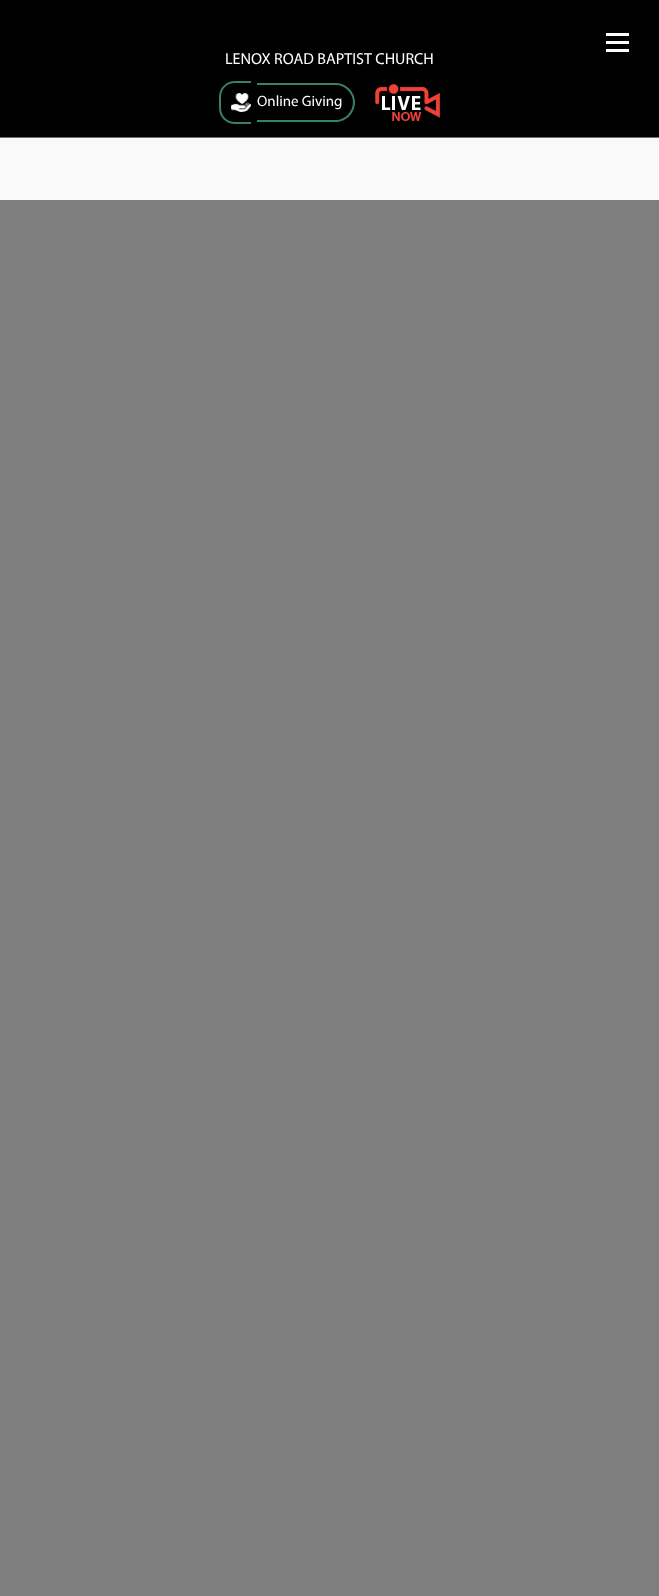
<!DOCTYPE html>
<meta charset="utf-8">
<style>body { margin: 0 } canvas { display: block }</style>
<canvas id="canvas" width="659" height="1596"></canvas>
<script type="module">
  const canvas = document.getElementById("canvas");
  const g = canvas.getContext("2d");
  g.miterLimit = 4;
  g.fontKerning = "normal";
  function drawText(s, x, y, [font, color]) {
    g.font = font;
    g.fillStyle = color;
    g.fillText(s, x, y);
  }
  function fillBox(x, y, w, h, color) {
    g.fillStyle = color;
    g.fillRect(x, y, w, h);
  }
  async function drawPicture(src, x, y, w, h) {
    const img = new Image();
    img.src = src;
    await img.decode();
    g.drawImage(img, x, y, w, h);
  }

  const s1 = ["16px Myriad", "#FFFEFE"];
  const s2 = ["15px Myriad", "#FFFEFE"];

  fillBox(0, 0, 659, 1596, "#F9F9F9");
  fillBox(0, 0, 659, 137, "#000000");
  fillBox(0, 137, 659, 1, "#707070");
  fillBox(606, 33, 23, 3, "#FFFFFF");
  fillBox(606, 41, 23, 3, "#FFFFFF");
  fillBox(606, 49, 23, 3, "#FFFFFF");
  drawText("LENOX ROAD BAPTIST CHURCH", 225, 64, s1);
  g.fillStyle = "#37806C";
  g.beginPath();
  g.moveTo(235, 81);
  g.lineTo(251, 81);
  g.lineTo(251, 124);
  g.lineTo(235, 124);
  g.bezierCurveTo(226, 124, 219, 117, 219, 108);
  g.lineTo(219, 97);
  g.bezierCurveTo(219, 88, 226, 81, 235, 81);
  g.closePath();
  g.moveTo(235, 83);
  g.lineTo(251, 83);
  g.lineTo(251, 122);
  g.lineTo(235, 122);
  g.bezierCurveTo(227, 122, 221, 116, 221, 108);
  g.lineTo(221, 97);
  g.bezierCurveTo(221, 89, 227, 83, 235, 83);
  g.closePath();
  g.fill("evenodd");
  await drawPicture("pic1.png", 231, 93, 20, 19);
  g.beginPath();
  g.moveTo(257, 83);
  g.lineTo(336, 83);
  g.bezierCurveTo(346, 83, 355, 92, 355, 102);
  g.bezierCurveTo(355, 113, 346, 122, 336, 122);
  g.lineTo(257, 122);
  g.closePath();
  g.moveTo(257, 85);
  g.lineTo(336, 85);
  g.bezierCurveTo(345, 85, 353, 93, 353, 102);
  g.bezierCurveTo(353, 112, 345, 120, 336, 120);
  g.lineTo(257, 120);
  g.closePath();
  g.fill("evenodd");
  drawText("Online Giving", 257, 106, s2);
  await drawPicture("pic2.png", 375, 84, 65, 37);
  fillBox(0, 200, 659, 1396, "#7E7E7E");
</script>
